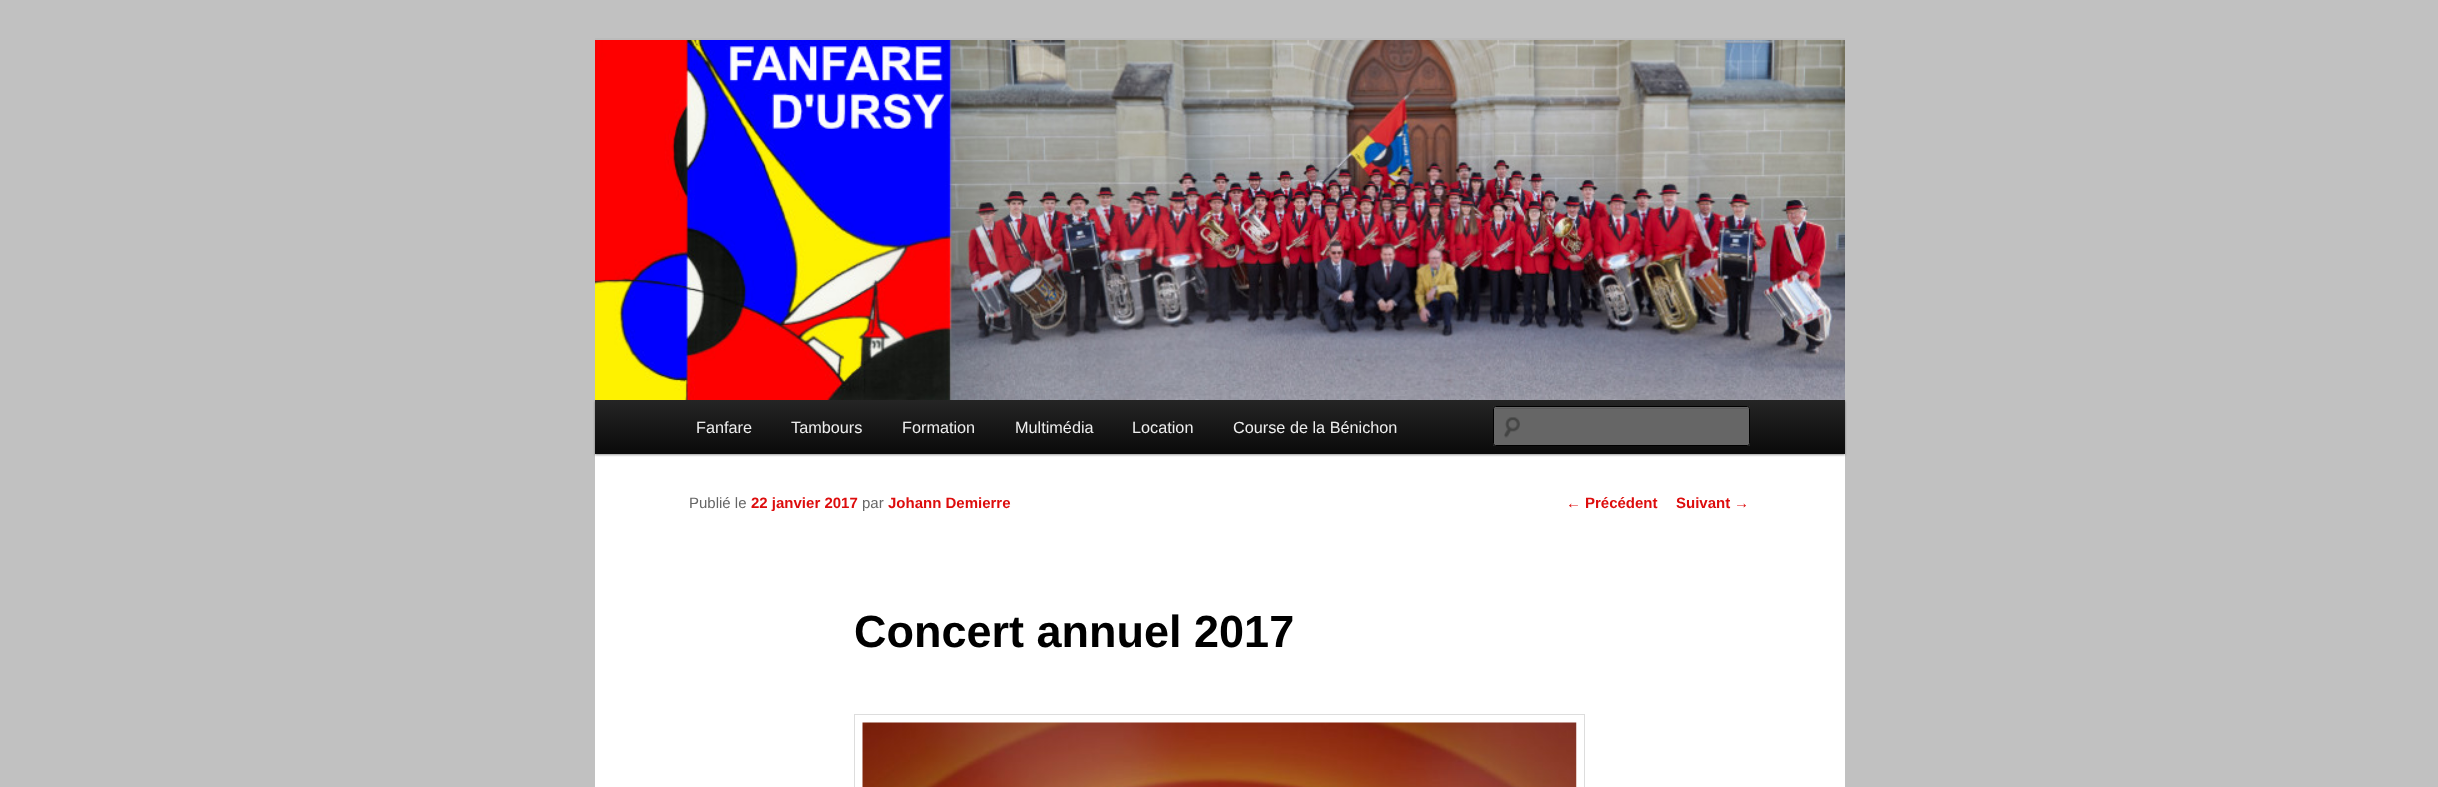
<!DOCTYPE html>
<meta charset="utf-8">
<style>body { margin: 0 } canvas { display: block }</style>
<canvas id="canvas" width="2438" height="787"></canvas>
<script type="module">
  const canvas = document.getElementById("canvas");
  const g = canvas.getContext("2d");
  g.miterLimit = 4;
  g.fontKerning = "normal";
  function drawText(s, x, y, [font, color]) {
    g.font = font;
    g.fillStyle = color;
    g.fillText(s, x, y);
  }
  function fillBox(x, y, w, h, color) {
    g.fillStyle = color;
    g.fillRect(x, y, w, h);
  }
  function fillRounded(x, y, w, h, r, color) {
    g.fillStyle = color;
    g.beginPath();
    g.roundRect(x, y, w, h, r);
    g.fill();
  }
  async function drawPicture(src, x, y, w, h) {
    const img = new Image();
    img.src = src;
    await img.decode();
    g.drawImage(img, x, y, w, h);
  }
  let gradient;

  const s1 = ["16.25px Liberation Sans", "#EEEEEE"];
  const s2 = ["15px Liberation Sans", "#666666"];
  const s3 = ["bold 15px Liberation Sans", "#DD0D0D"];
  const s4 = ["bold 45px Liberation Sans", "#000000"];
  const s5 = ["15px Liberation Sans", "#DD0D0D"];

  fillBox(0, 0, 2438, 787, "#C1C1C1");
  fillBox(595, 454, 1250, 333, "#FFFFFF");
  fillBox(595, 38, 1250, 2, "#BBBBBB");
  g.fillStyle = "rgba(0, 0, 0, 0.4)";
  g.filter = "blur(1px)";
  g.beginPath();
  g.rect(595, 401, 1250, 54);
  g.fill();
  g.filter = "none";
  await drawPicture("pic1.png", 595, 40, 1250, 360);
  gradient = g.createLinearGradient(1220, 400, 1220, 454);
  gradient.addColorStop(0, "#252525");
  gradient.addColorStop(1, "#0A0A0A");
  g.fillStyle = gradient;
  g.fillRect(595, 400, 1250, 54);
  drawText("Fanfare", 696, 433, s1);
  drawText("Tambours", 791, 433, s1);
  drawText("Formation", 902, 433, s1);
  drawText("Multimédia", 1015, 433, s1);
  drawText("Location", 1132, 433, s1);
  drawText("Course de la Bénichon", 1233, 433, s1);
  fillRounded(1493, 406, 257, 40, 2.5, "#666666");
  await drawPicture("pic2.png", 1504, 417, 16, 21);
  g.fillStyle = "#5C5C5C";
  g.beginPath();
  g.moveTo(1495, 409);
  g.lineTo(1748, 409);
  g.lineTo(1749, 410);
  g.lineTo(1749, 408);
  g.lineTo(1495, 408);
  g.bezierCurveTo(1494, 408, 1494, 409, 1494, 410);
  g.bezierCurveTo(1494, 409, 1494, 409, 1495, 409);
  g.closePath();
  g.fill();
  g.beginPath();
  g.roundRect(1493.5, 406.5, 256, 39, 2);
  g.strokeStyle = "#000000";
  g.stroke();
  drawText("Publié le", 689, 508, s2);
  drawText("22 janvier 2017", 751, 508, s3);
  drawText("par", 862, 508, s2);
  drawText("Johann Demierre", 888, 508, s3);
  drawText("Concert annuel 2017", 854, 647, s4);
  g.strokeStyle = "#DDDDDD";
  g.strokeRect(854.5, 714.5, 730, 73);
  await drawPicture("pic3.png", 862, 722, 715, 65);
  drawText("←", 1566, 508, s5);
  drawText("Précédent", 1585, 508, s3);
  drawText("Suivant", 1676, 508, s3);
  drawText("→", 1734, 508, s5);
</script>
